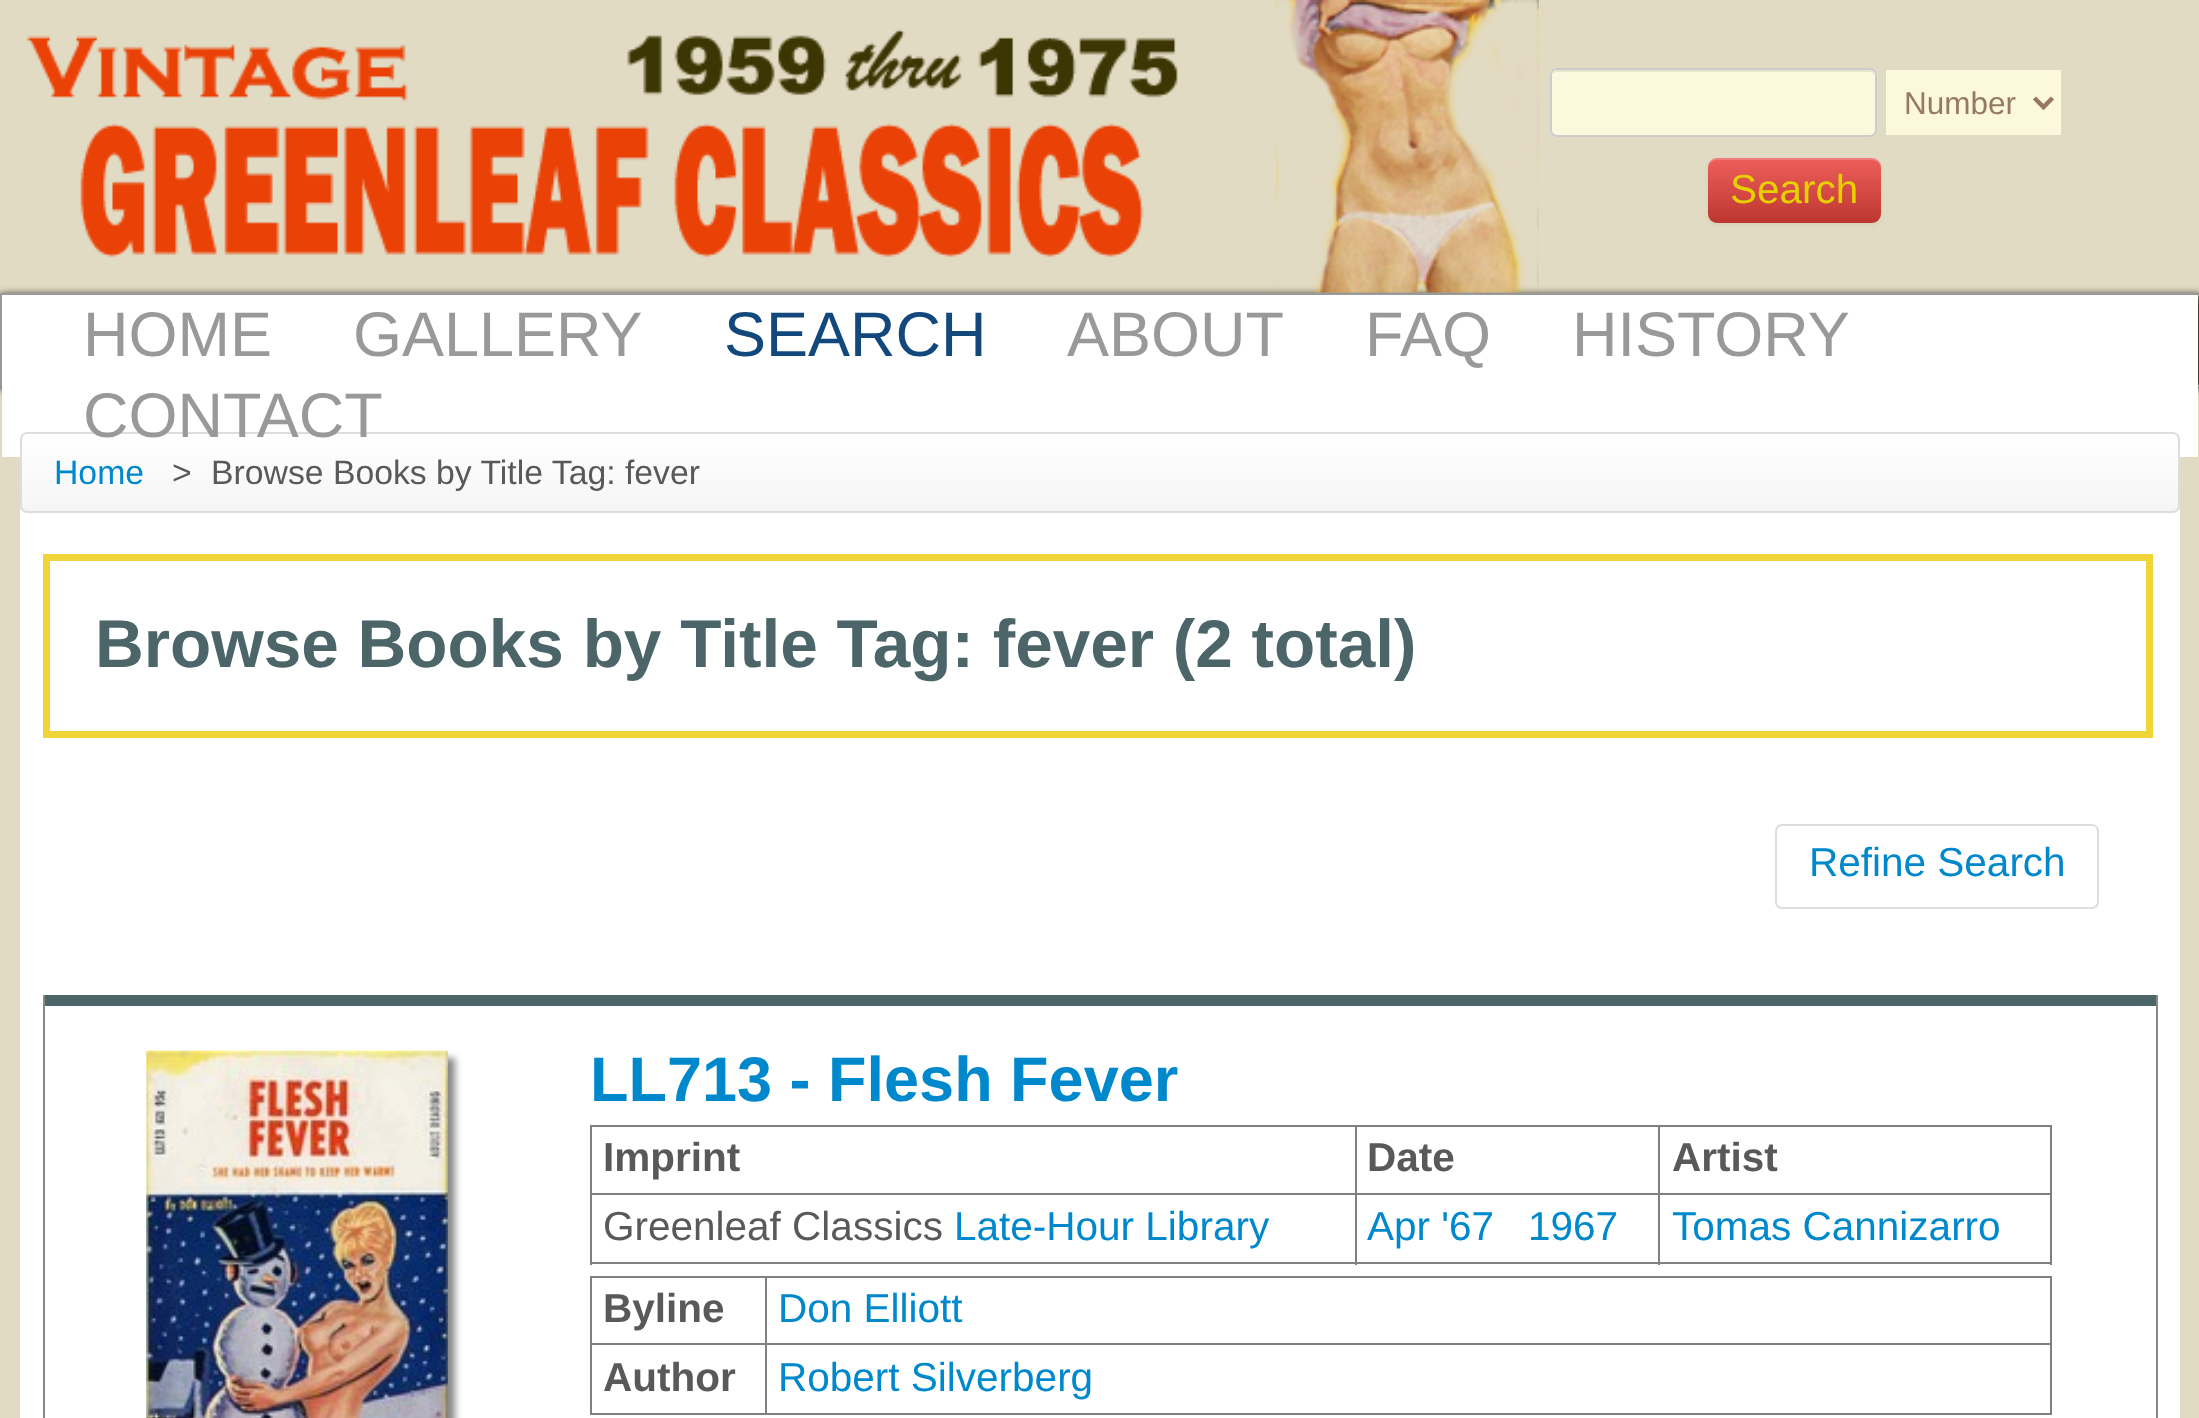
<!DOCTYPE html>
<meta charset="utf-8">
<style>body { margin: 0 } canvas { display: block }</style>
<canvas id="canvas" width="2199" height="1418"></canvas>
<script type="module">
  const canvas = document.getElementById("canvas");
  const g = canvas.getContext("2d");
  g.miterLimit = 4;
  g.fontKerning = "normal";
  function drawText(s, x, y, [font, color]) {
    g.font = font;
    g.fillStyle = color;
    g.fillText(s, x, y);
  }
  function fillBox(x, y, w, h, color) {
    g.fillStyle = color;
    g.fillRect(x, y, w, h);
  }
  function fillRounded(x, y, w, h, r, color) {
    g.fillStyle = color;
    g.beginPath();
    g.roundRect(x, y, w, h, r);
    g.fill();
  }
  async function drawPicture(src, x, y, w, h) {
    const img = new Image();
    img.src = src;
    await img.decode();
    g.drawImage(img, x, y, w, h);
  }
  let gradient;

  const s1 = ["31.5px Liberation Sans", "#957966"];
  const s2 = ["40.5px Liberation Sans", "#E6D000"];
  const s3 = ["63px Liberation Sans", "#999999"];
  const s4 = ["63px Liberation Sans", "#13487D"];
  const s5 = ["33.75px Liberation Sans", "#0088CC"];
  const s6 = ["33.75px Liberation Sans", "#58595B"];
  const s7 = ["bold 67.5px Liberation Sans", "#4B6569"];
  const s8 = ["40.5px Liberation Sans", "#0088CC"];
  const s9 = ["bold 63px Liberation Sans", "#0088CC"];
  const s10 = ["bold 40.5px Liberation Sans", "#58595B"];
  const s11 = ["40.5px Liberation Sans", "#58595B"];

  fillBox(0, 0, 2199, 1418, "#E2DBC4");
  await drawPicture("pic1.png", 26, 29, 1152, 229);
  g.fillStyle = "#000000";
  g.filter = "blur(4.5px)";
  g.beginPath();
  g.rect(0, 295, 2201, 94);
  g.fill();
  g.filter = "none";
  await drawPicture("pic2.png", 1275, 0, 264, 293);
  fillRounded(1550, 68, 327, 69, 7, "#FCF8DE");
  g.fillStyle = "#E9E5CD";
  g.beginPath();
  g.moveTo(1557, 72);
  g.lineTo(1870, 72);
  g.bezierCurveTo(1872, 72, 1874, 74, 1874, 76);
  g.lineTo(1874, 75);
  g.bezierCurveTo(1874, 72, 1872, 70, 1869, 70);
  g.lineTo(1558, 70);
  g.bezierCurveTo(1556, 70, 1554, 72, 1553, 74);
  g.bezierCurveTo(1554, 73, 1556, 72, 1557, 72);
  g.closePath();
  g.fill();
  g.beginPath();
  g.roundRect(1551, 69, 325, 67, 6);
  g.strokeStyle = "#CCCCCC";
  g.lineWidth = 2;
  g.stroke();
  fillBox(1886, 70, 175, 65, "#FCF8DE");
  g.beginPath();
  g.moveTo(2034.5, 98);
  g.lineTo(2043.5, 107);
  g.lineTo(2052.5, 98);
  g.strokeStyle = "#957966";
  g.lineWidth = 4.5;
  g.stroke();
  drawText("Number", 1904, 114, s1);
  g.fillStyle = "rgba(0, 0, 0, 0.05)";
  g.filter = "blur(2px)";
  g.beginPath();
  g.roundRect(1708, 160, 173, 65, 9);
  g.fill();
  g.filter = "none";
  gradient = g.createLinearGradient(1794, 158, 1794, 223);
  gradient.addColorStop(0, "#EE5F5B");
  gradient.addColorStop(1, "#BD362F");
  g.fillStyle = gradient;
  g.beginPath();
  g.roundRect(1708, 158, 173, 65, 9);
  g.fill();
  g.fillStyle = "rgba(255, 255, 255, 0.2)";
  g.beginPath();
  g.moveTo(1717, 160);
  g.lineTo(1872, 160);
  g.bezierCurveTo(1877, 160, 1881, 164, 1881, 169);
  g.lineTo(1881, 167);
  g.bezierCurveTo(1881, 162, 1877, 158, 1872, 158);
  g.lineTo(1717, 158);
  g.bezierCurveTo(1712, 158, 1708, 162, 1708, 167);
  g.lineTo(1708, 169);
  g.bezierCurveTo(1708, 164, 1712, 160, 1717, 160);
  g.closePath();
  g.fill();
  drawText("Search", 1730, 203, s2);
  g.strokeStyle = "#999999";
  g.lineWidth = 2;
  g.strokeRect(1, 294, 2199, 92);
  fillBox(2, 295, 2196, 162, "#FFFFFF");
  drawText("HOME", 83, 356, s3);
  drawText("GALLERY", 353, 356, s3);
  drawText("SEARCH", 724, 356, s4);
  drawText("ABOUT", 1067, 356, s3);
  drawText("FAQ", 1365, 356, s3);
  drawText("HISTORY", 1572, 356, s3);
  fillBox(20, 457, 2160, 961, "#FFFFFF");
  g.save();
  g.beginPath();
  g.roundRect(20, 432, 2160, 81, 7);
  g.clip();
  gradient = g.createLinearGradient(1100, 434, 1100, 511);
  gradient.addColorStop(0, "#FFFFFF");
  gradient.addColorStop(1, "#F5F5F5");
  g.fillStyle = gradient;
  g.fillRect(20, 434, 2160, 77);
  g.restore();
  g.beginPath();
  g.roundRect(21, 433, 2158, 79, 6);
  g.strokeStyle = "#DDDDDD";
  g.stroke();
  drawText("CONTACT", 83, 437, s3);
  drawText("Home", 54, 484, s5);
  drawText(">", 172, 484, s6);
  drawText("Browse Books by Title Tag: fever", 211, 484, s6);
  g.strokeStyle = "#F0D539";
  g.lineWidth = 7;
  g.strokeRect(46.5, 557.5, 2103, 177);
  drawText("Browse Books by Title Tag: fever (2 total)", 95, 667, s7);
  g.beginPath();
  g.roundRect(1776, 825, 322, 83, 6);
  g.strokeStyle = "#DDDDDD";
  g.lineWidth = 2;
  g.stroke();
  drawText("Refine Search", 1809, 876, s8);
  fillBox(2156, 995, 2, 423, "#888888");
  fillBox(43, 995, 2, 423, "#888888");
  fillBox(45, 995, 2111, 11, "#4B6569");
  g.fillStyle = "#888888";
  g.filter = "blur(3.5px)";
  g.beginPath();
  g.rect(153, 1058, 302, 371);
  g.fill();
  g.filter = "none";
  await drawPicture("pic3.png", 146, 1050, 302, 368);
  drawText("LL713 - Flesh Fever", 590, 1101, s9);
  fillBox(590, 1125, 1462, 2, "#808080");
  fillBox(2050, 1125, 2, 140, "#808080");
  fillBox(590, 1262, 1462, 2, "#808080");
  fillBox(590, 1125, 2, 140, "#808080");
  drawText("Imprint", 603, 1171, s10);
  fillBox(1658, 1193, 394, 2, "#808080");
  fillBox(1658, 1193, 2, 72, "#808080");
  fillBox(1355, 1193, 306, 2, "#808080");
  fillBox(1355, 1193, 2, 72, "#808080");
  fillBox(590, 1193, 767, 2, "#808080");
  fillBox(1355, 1125, 2, 70, "#808080");
  drawText("Date", 1367, 1171, s10);
  fillBox(1658, 1125, 2, 70, "#808080");
  drawText("Artist", 1672, 1171, s10);
  drawText("Greenleaf Classics", 603, 1240, s11);
  drawText("Late-Hour Library", 954, 1240, s8);
  drawText("Apr '67", 1367, 1240, s8);
  drawText("1967", 1528, 1240, s8);
  drawText("Tomas Cannizarro", 1672, 1240, s8);
  fillBox(590, 1276, 1462, 2, "#808080");
  fillBox(2050, 1276, 2, 139, "#808080");
  fillBox(590, 1413, 1462, 2, "#808080");
  fillBox(590, 1276, 2, 139, "#808080");
  drawText("Byline", 603, 1322, s10);
  fillBox(765, 1343, 1287, 2, "#808080");
  fillBox(765, 1343, 2, 72, "#808080");
  fillBox(590, 1343, 177, 2, "#808080");
  fillBox(765, 1276, 2, 70, "#808080");
  drawText("Don Elliott", 778, 1322, s8);
  drawText("Author", 603, 1391, s10);
  drawText("Robert Silverberg", 778, 1391, s8);
</script>
